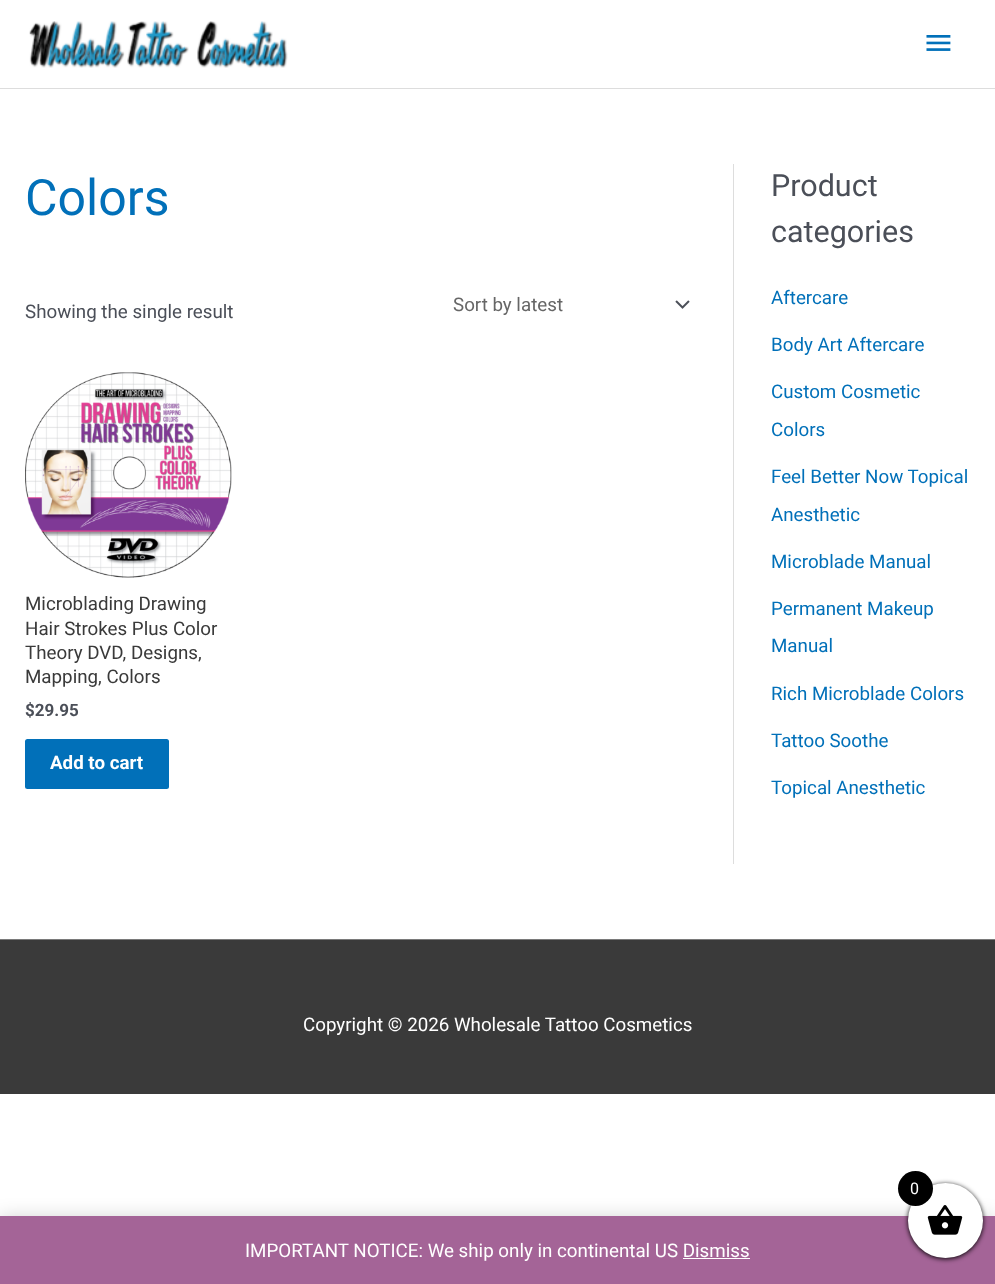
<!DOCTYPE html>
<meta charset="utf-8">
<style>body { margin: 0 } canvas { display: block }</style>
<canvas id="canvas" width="995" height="1284"></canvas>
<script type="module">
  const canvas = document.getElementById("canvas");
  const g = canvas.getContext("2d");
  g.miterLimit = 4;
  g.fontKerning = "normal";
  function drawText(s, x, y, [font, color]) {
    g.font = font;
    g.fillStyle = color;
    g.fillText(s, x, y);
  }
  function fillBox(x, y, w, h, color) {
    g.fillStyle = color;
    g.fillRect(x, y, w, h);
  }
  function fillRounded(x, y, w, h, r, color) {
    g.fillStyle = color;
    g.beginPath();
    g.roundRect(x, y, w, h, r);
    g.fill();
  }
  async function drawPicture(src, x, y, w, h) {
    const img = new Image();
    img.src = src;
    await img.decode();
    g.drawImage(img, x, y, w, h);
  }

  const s1 = ["50px Roboto", "#0170B9"];
  const s2 = ["18.75px Roboto", "#4B4F58"];
  const s3 = ["18.75px Roboto", "#666666"];
  const s4 = ["18.75px Roboto", "#3A3A3A"];
  const s5 = ["bold 17px Roboto", "#4B4F58"];
  const s6 = ["bold 18.75px Roboto", "#FFFFFF"];
  const s7 = ["30.5px Roboto", "#4B4F58"];
  const s8 = ["18.75px Roboto", "#0170B9"];
  const s9 = ["18.75px Roboto", "#FFFFFF"];
  const s10 = ["16px Roboto", "#FFFFFF"];

  fillBox(0, 0, 995, 1284, "#FFFFFF");
  fillBox(0, 88, 995, 1, "#DDDDDD");
  await drawPicture("pic1.png", 29, 21, 259, 47);
  await drawPicture("pic2.png", 926, 35, 25, 16);
  fillBox(733, 164, 1, 700, "#DDDDDD");
  drawText("Colors", 25, 215, s1);
  drawText("Showing the single result", 25, 318, s2);
  await drawPicture("pic3.png", 675, 300, 15, 9);
  drawText("Sort by latest", 453, 311, s3);
  await drawPicture("pic4.png", 25, 372, 207, 206);
  drawText("Microblading Drawing", 25, 610, s4);
  drawText("Hair Strokes Plus Color", 25, 635, s4);
  drawText("Theory DVD, Designs,", 25, 659, s4);
  drawText("Mapping, Colors", 25, 683, s4);
  drawText("$29.95", 25, 716, s5);
  fillRounded(25, 739, 144, 50, 2.5, "#0170B9");
  drawText("Add to cart", 50, 769, s6);
  drawText("Product", 771, 196, s7);
  drawText("categories", 771, 242, s7);
  drawText("Aftercare", 771, 304, s8);
  drawText("Body Art Aftercare", 771, 351, s8);
  drawText("Custom Cosmetic", 771, 398, s8);
  drawText("Colors", 771, 436, s8);
  drawText("Feel Better Now Topical", 771, 483, s8);
  drawText("Anesthetic", 771, 521, s8);
  drawText("Microblade Manual", 771, 568, s8);
  drawText("Permanent Makeup", 771, 615, s8);
  drawText("Manual", 771, 652, s8);
  drawText("Rich Microblade Colors", 771, 700, s8);
  drawText("Tattoo Soothe", 771, 747, s8);
  drawText("Topical Anesthetic", 771, 794, s8);
  fillBox(0, 939, 995, 1, "#7A7A7A");
  fillBox(0, 940, 995, 154, "#3A3A3A");
  drawText("Copyright © 2026 Wholesale Tattoo Cosmetics", 303, 1031, s9);
  g.fillStyle = "rgba(0, 0, 0, 0.2)";
  g.filter = "blur(9.5px)";
  g.beginPath();
  g.rect(0, 1218, 995, 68);
  g.fill();
  g.filter = "none";
  fillBox(0, 1216, 995, 68, "#A46497");
  g.fillStyle = "#000000";
  g.filter = "blur(2.5px)";
  g.beginPath();
  g.roundRect(908, 1184, 75, 75, 37.5);
  g.fill();
  g.filter = "none";
  g.fillStyle = "#FFFFFF";
  g.beginPath();
  g.arc(945.5, 1220.5, 37.5, 0, Math.PI * 2);
  g.fill();
  await drawPicture("pic5.png", 927, 1205, 36, 30);
  g.fillStyle = "#000000";
  g.beginPath();
  g.arc(915.5, 1188.5, 17.5, 0, Math.PI * 2);
  g.fill();
  drawText("0", 910, 1194, s10);
  drawText("IMPORTANT NOTICE: We ship only in continental US Dismiss", 245, 1257, s9);
  fillBox(683, 1258, 67, 1, "#FFFFFF");
</script>
